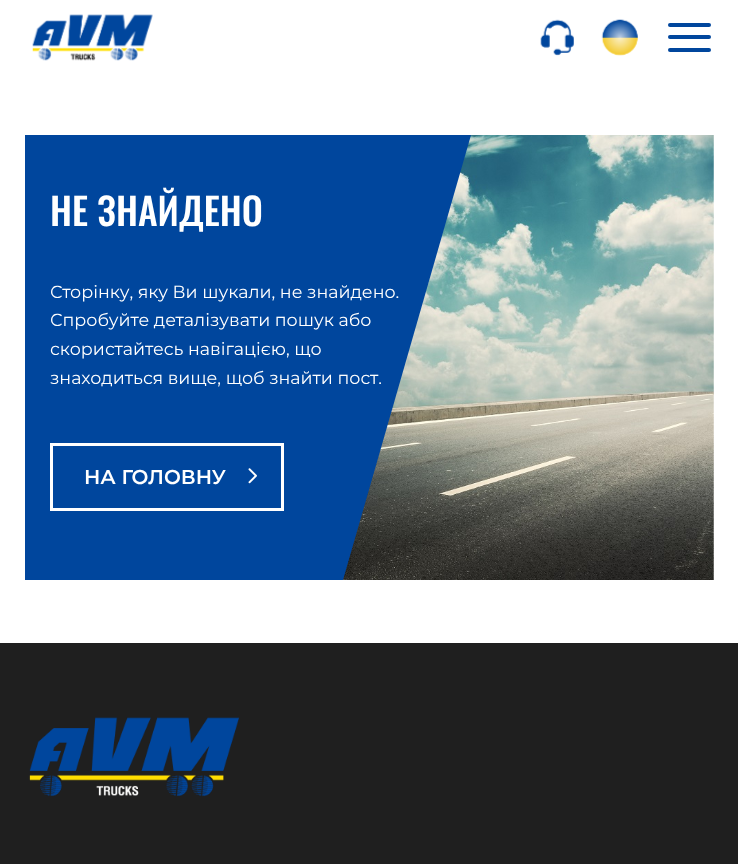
<!DOCTYPE html>
<meta charset="utf-8">
<style>body { margin: 0 } canvas { display: block }</style>
<canvas id="canvas" width="738" height="864"></canvas>
<script type="module">
  const canvas = document.getElementById("canvas");
  const g = canvas.getContext("2d");
  g.miterLimit = 4;
  g.fontKerning = "normal";
  function drawText(s, x, y, [font, color]) {
    g.font = font;
    g.fillStyle = color;
    g.fillText(s, x, y);
  }
  function fillBox(x, y, w, h, color) {
    g.fillStyle = color;
    g.fillRect(x, y, w, h);
  }
  function fillRounded(x, y, w, h, r, color) {
    g.fillStyle = color;
    g.beginPath();
    g.roundRect(x, y, w, h, r);
    g.fill();
  }
  async function drawPicture(src, x, y, w, h) {
    const img = new Image();
    img.src = src;
    await img.decode();
    g.drawImage(img, x, y, w, h);
  }

  const s1 = ["500 37.5px Oswald", "#FFFFFF"];
  const s2 = ["100 17.5px Montserrat", "#FFFFFF"];
  const s3 = ["600 20px Montserrat", "#FFFFFF"];

  fillBox(0, 0, 738, 864, "#FFFFFF");
  fillRounded(668, 35, 43, 4, 2, "#00469D");
  fillRounded(668, 23, 43, 4, 2, "#00469D");
  fillRounded(668, 48, 43, 4, 2, "#00469D");
  await drawPicture("pic1.png", 32, 14, 121, 47);
  await drawPicture("pic2.png", 540, 19, 34, 37);
  await drawPicture("pic3.png", 601, 19, 37, 37);
  await drawPicture("pic4.png", 343, 135, 371, 445);
  g.save();
  g.beginPath();
  g.rect(25, 135, 689, 445);
  g.clip();
  g.beginPath();
  g.moveTo(-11, 135);
  g.lineTo(471, 135);
  g.lineTo(343, 580);
  g.lineTo(-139, 580);
  g.closePath();
  g.fill();
  g.restore();
  drawText("НЕ ЗНАЙДЕНО", 50, 226, s1);
  drawText("Сторінку, яку Ви шукали, не знайдено.", 50, 298, s2);
  drawText("Спробуйте деталізувати пошук або", 50, 326, s2);
  drawText("скористайтесь навігацією, що", 50, 355, s2);
  drawText("знаходиться вище, щоб знайти пост.", 50, 384, s2);
  g.strokeStyle = "#FFFFFF";
  g.lineWidth = 3;
  g.strokeRect(51.5, 444.5, 231, 65);
  drawText("НА ГОЛОВНУ", 84, 484, s3);
  await drawPicture("pic5.png", 248, 468, 9, 16);
  fillBox(0, 643, 738, 221, "#1F1F1F");
  await drawPicture("pic6.png", 29, 717, 210, 80);
</script>
